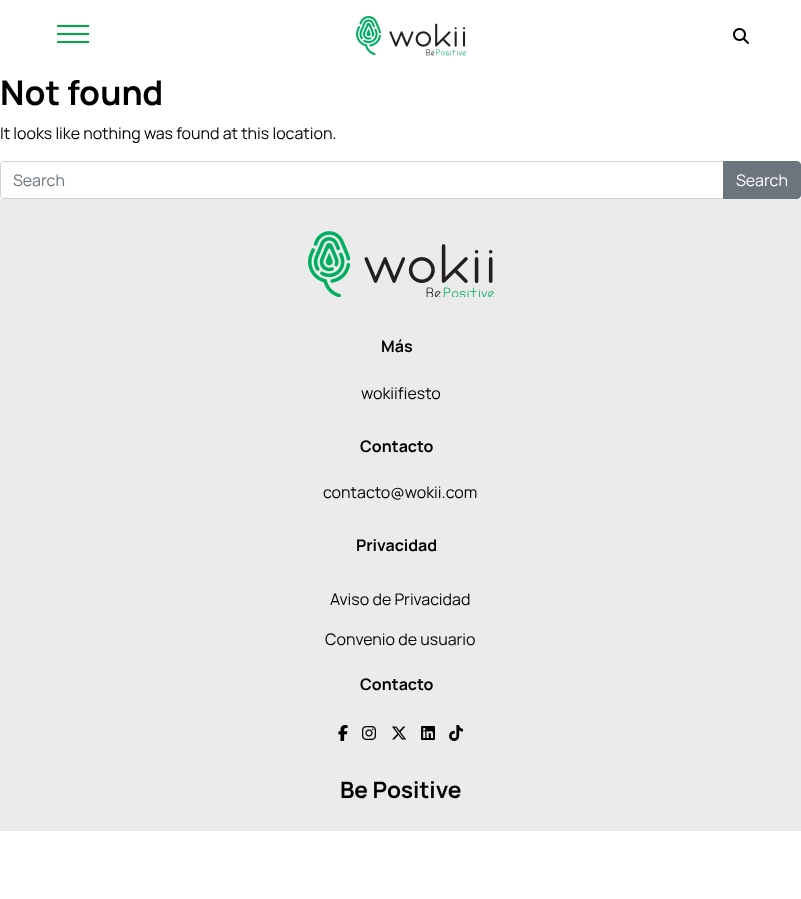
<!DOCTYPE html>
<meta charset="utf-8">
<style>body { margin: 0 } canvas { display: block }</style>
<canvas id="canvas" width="801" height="899"></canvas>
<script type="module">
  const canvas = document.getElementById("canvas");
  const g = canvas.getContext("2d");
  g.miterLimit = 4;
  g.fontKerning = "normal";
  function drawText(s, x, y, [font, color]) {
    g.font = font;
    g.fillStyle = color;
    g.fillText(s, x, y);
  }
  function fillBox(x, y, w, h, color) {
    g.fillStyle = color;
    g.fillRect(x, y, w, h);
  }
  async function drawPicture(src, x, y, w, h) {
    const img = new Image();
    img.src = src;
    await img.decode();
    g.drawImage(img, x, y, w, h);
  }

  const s1 = ["200 34px Manrope", "#000000"];
  const s2 = ["200 16px 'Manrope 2'", "#000000"];
  const s3 = ["200 16px 'Manrope 2'", "#6C757D"];
  const s4 = ["200 16px 'Manrope 2'", "#FFFFFF"];
  const s5 = ["200 16px Manrope", "#000000"];
  const s6 = ["200 22.75px Manrope", "#000000"];

  fillBox(0, 0, 801, 899, "#FFFFFF");
  fillBox(57, 25, 32, 2, "#00AD42");
  fillBox(57, 33, 32, 2, "#00AD42");
  fillBox(57, 41, 32, 2, "#00AD42");
  await drawPicture("pic1.png", 356, 16, 110, 40);
  await drawPicture("pic2.png", 733, 28, 16, 16);
  drawText("Not found", 0, 105, s1);
  drawText("It looks like nothing was found at this location.", 0, 139, s2);
  g.beginPath();
  g.roundRect(0.5, 161.5, 723, 37, [3.5, 0, 0, 3.5]);
  g.strokeStyle = "#CED4DA";
  g.stroke();
  drawText("Search", 13, 186, s3);
  g.beginPath();
  g.roundRect(723.5, 161.5, 77, 37, [0, 3.5, 3.5, 0]);
  g.fill();
  g.strokeStyle = "#6C757D";
  g.stroke();
  drawText("Search", 736, 186, s4);
  fillBox(0, 199, 801, 632, "#EBEBEB");
  await drawPicture("pic3.png", 308, 231, 186, 66);
  drawText("Más", 381, 352, s5);
  drawText("wokiifiesto", 361, 399, s2);
  drawText("Contacto", 360, 452, s5);
  drawText("contacto@wokii.com", 323, 498, s2);
  drawText("Privacidad", 356, 551, s5);
  drawText("Aviso de Privacidad", 330, 605, s2);
  drawText("Convenio de usuario", 325, 645, s2);
  drawText("Contacto", 360, 690, s5);
  await drawPicture("pic4.png", 338, 725, 10, 16);
  await drawPicture("pic5.png", 362, 726, 14, 14);
  await drawPicture("pic6.png", 392, 726, 15, 14);
  await drawPicture("pic7.png", 421, 726, 14, 14);
  await drawPicture("pic8.png", 449, 725, 14, 16);
  drawText("Be Positive", 340, 798, s6);
</script>
